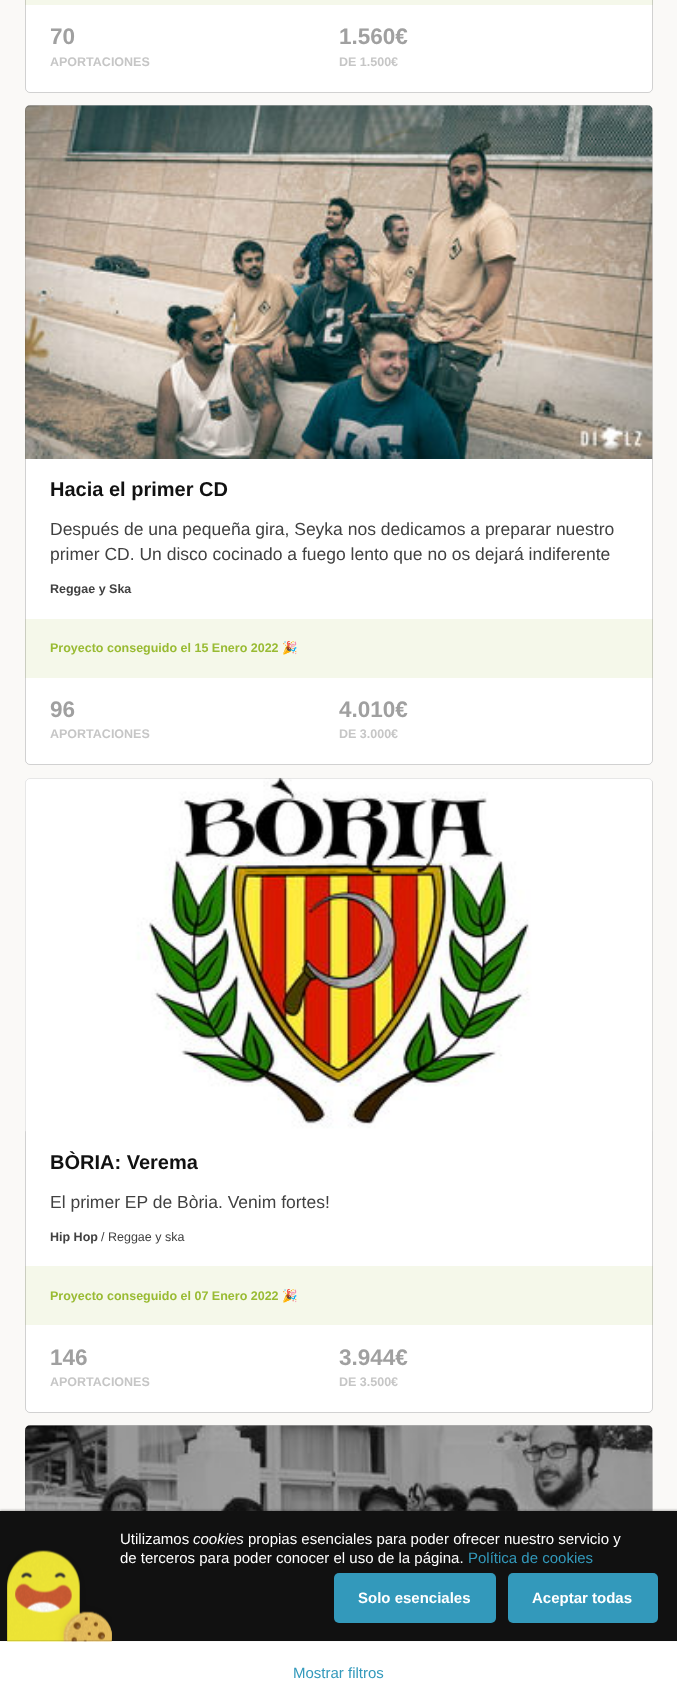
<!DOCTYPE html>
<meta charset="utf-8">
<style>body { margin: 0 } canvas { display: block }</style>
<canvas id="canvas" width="677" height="1702"></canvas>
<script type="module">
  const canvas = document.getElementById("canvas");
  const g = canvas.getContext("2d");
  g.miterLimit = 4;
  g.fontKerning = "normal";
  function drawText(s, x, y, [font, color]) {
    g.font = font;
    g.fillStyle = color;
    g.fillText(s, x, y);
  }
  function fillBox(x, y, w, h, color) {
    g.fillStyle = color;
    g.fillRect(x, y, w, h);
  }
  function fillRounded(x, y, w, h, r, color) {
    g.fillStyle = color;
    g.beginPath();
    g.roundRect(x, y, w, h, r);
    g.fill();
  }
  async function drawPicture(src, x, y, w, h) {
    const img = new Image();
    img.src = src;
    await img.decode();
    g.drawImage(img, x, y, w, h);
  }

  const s1 = ["bold 22.5px Liberation Sans", "#A0A0A0"];
  const s2 = ["bold 12.5px Liberation Sans", "#C6C6C6"];
  const s3 = ["bold 20px Liberation Sans", "#111111"];
  const s4 = ["17.5px Liberation Sans", "#414141"];
  const s5 = ["bold 12.5px Liberation Sans", "#414141"];
  const s6 = ["bold 12.5px Liberation Sans", "#99BB33"];
  const s7 = ["bold 12.5px Noto Color Emoji", "#99BB33"];
  const s8 = ["12.5px Liberation Sans", "#414141"];
  const s9 = ["15px Liberation Sans", "#3399BB"];
  const s10 = ["15px Liberation Sans", "#FFFFFF"];
  const s11 = ["italic 15px Liberation Sans", "#FFFFFF"];
  const s12 = ["bold 15px Liberation Sans", "#FFFFFF"];

  fillBox(0, 0, 677, 1702, "#FAF9F7");
  fillRounded(25, -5, 628, 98, 5, "#FFFFFF");
  g.beginPath();
  g.roundRect(25.5, -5.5, 627, 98, 4.5);
  g.strokeStyle = "rgba(17, 17, 17, 0.1)";
  g.stroke();
  fillBox(25, 0, 628, 5, "rgba(153, 187, 51, 0.1)");
  g.beginPath();
  g.roundRect(25.5, -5.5, 627, 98, 4.5);
  g.stroke();
  drawText("70", 50, 44, s1);
  drawText("APORTACIONES", 50, 66, s2);
  drawText("1.560€", 339, 44, s1);
  drawText("DE 1.500€", 339, 66, s2);
  fillRounded(25, 105, 628, 660, 5, "#FFFFFF");
  g.beginPath();
  g.roundRect(25.5, 105.5, 627, 659, 4.5);
  g.stroke();
  await drawPicture("pic1.png", 25, 105, 628, 354);
  fillBox(25, 619, 628, 59, "rgba(153, 187, 51, 0.1)");
  g.beginPath();
  g.roundRect(25.5, 105.5, 627, 659, 4.5);
  g.stroke();
  drawText("Hacia el primer CD", 50, 496, s3);
  drawText("Después de una pequeña gira, Seyka nos dedicamos a preparar nuestro", 50, 535, s4);
  drawText("primer CD. Un disco cocinado a fuego lento que no os dejará indiferente", 50, 560, s4);
  drawText("Reggae y Ska", 50, 593, s5);
  drawText("Proyecto conseguido el 15 Enero 2022", 50, 652, s6);
  drawText("🎉", 282, 652, s7);
  drawText("96", 50, 717, s1);
  drawText("APORTACIONES", 50, 738, s2);
  drawText("4.010€", 339, 717, s1);
  drawText("DE 3.000€", 339, 738, s2);
  fillRounded(25, 778, 628, 635, 5, "#FFFFFF");
  g.beginPath();
  g.roundRect(25.5, 778.5, 627, 634, 4.5);
  g.stroke();
  await drawPicture("pic2.png", 25, 777, 628, 355);
  fillBox(25, 1266, 628, 59, "rgba(153, 187, 51, 0.1)");
  g.beginPath();
  g.roundRect(25.5, 778.5, 627, 634, 4.5);
  g.stroke();
  drawText("BÒRIA: Verema", 50, 1169, s3);
  drawText("El primer EP de Bòria. Venim fortes!", 50, 1208, s4);
  drawText("Hip Hop", 50, 1241, s5);
  drawText("/ Reggae y ska", 101, 1241, s8);
  drawText("Proyecto conseguido el 07 Enero 2022", 50, 1300, s6);
  drawText("🎉", 282, 1300, s7);
  drawText("146", 50, 1365, s1);
  drawText("APORTACIONES", 50, 1386, s2);
  drawText("3.944€", 339, 1365, s1);
  drawText("DE 3.500€", 339, 1386, s2);
  fillRounded(25, 1425, 628, 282, 5, "#FFFFFF");
  g.beginPath();
  g.roundRect(25.5, 1425.5, 627, 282, 4.5);
  g.stroke();
  await drawPicture("pic3.png", 25, 1425, 628, 86);
  g.beginPath();
  g.roundRect(25.5, 1425.5, 627, 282, 4.5);
  g.stroke();
  fillBox(0, 1641, 677, 61, "#FFFFFF");
  drawText("Mostrar filtros", 293, 1678, s9);
  g.fillStyle = "rgba(34, 34, 34, 0.3)";
  g.filter = "blur(1px)";
  g.beginPath();
  g.rect(0, 1510, 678, 130);
  g.fill();
  g.filter = "none";
  fillBox(0, 1511, 677, 130, "#111111");
  await drawPicture("pic4.png", 7, 1550, 105, 92);
  drawText("Utilizamos", 120, 1544, s10);
  drawText("cookies", 193, 1544, s11);
  drawText("propias esenciales para poder ofrecer nuestro servicio y", 248, 1544, s10);
  drawText("de terceros para poder conocer el uso de la página.", 120, 1563, s10);
  drawText("Política de cookies", 468, 1563, s9);
  fillRounded(334, 1573, 162, 50, 5, "#3399BB");
  drawText("Solo esenciales", 358, 1603, s12);
  fillRounded(508, 1573, 150, 50, 5, "#3399BB");
  drawText("Aceptar todas", 532, 1603, s12);
</script>
